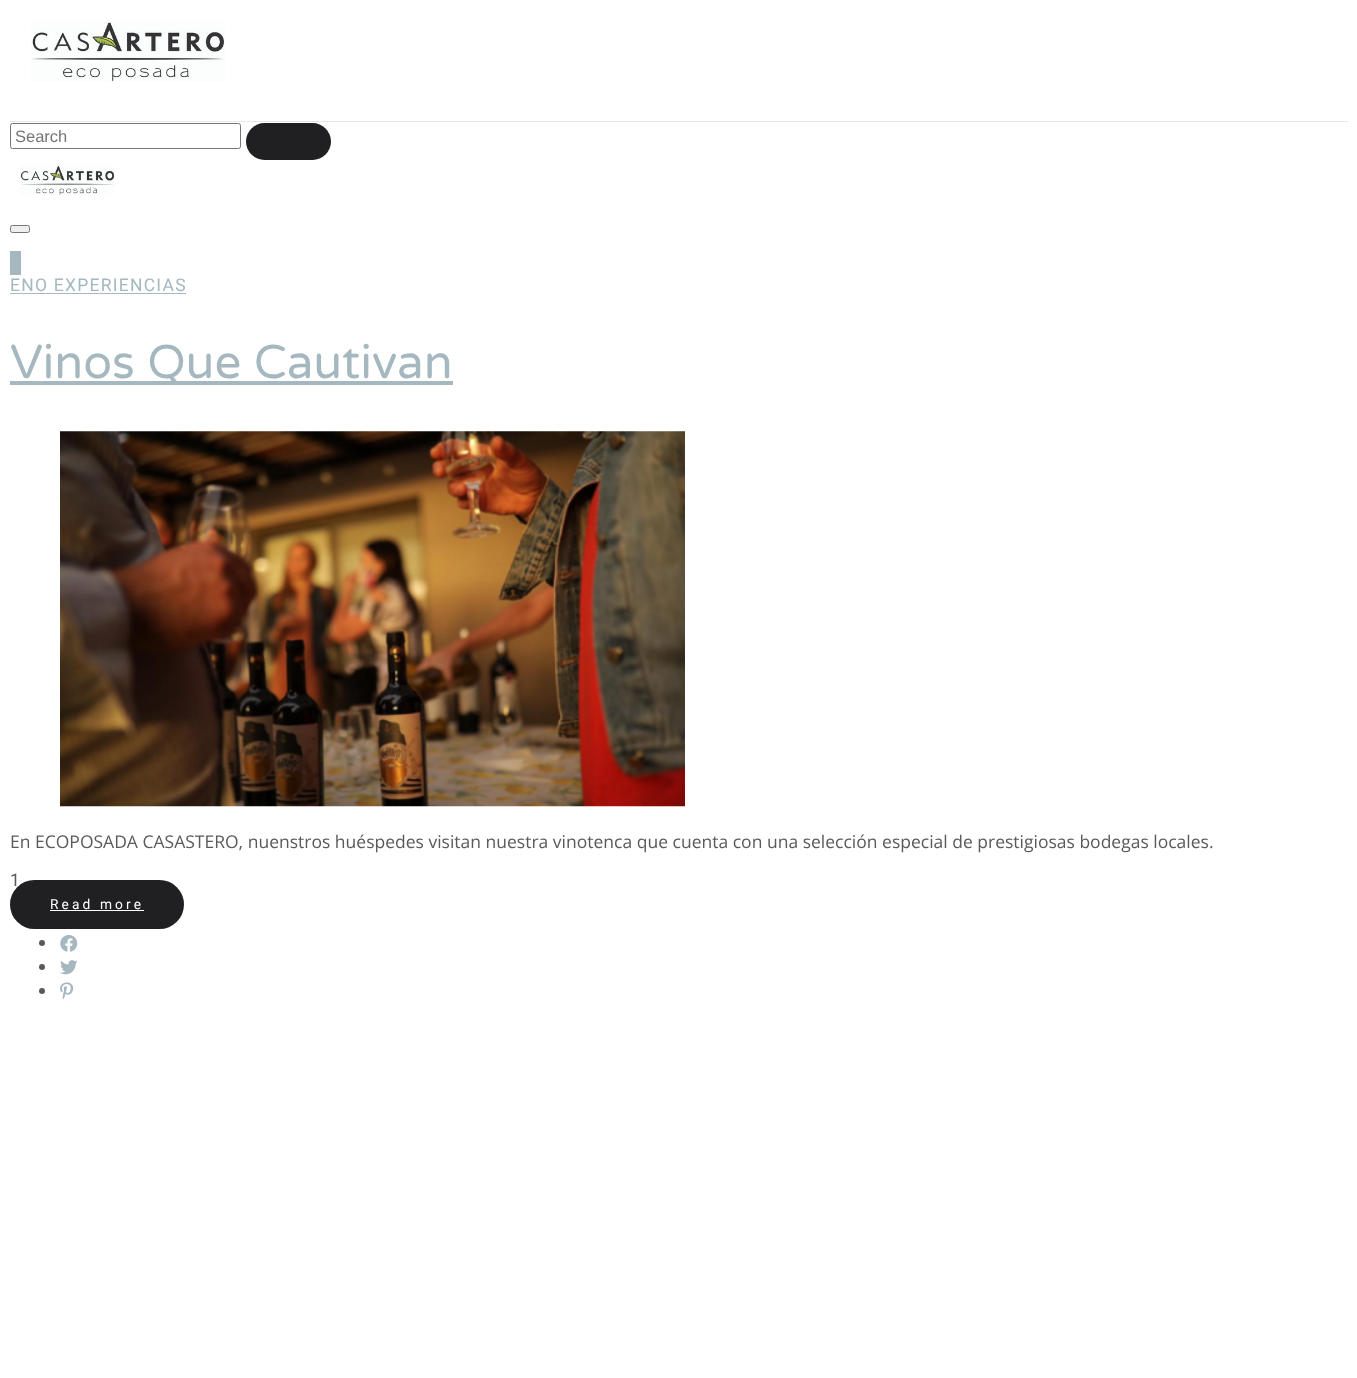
<!DOCTYPE html>
<meta charset="utf-8">
<style>body { margin: 0 } canvas { display: block }</style>
<canvas id="canvas" width="1357" height="1378"></canvas>
<script type="module">
  const canvas = document.getElementById("canvas");
  const g = canvas.getContext("2d");
  g.miterLimit = 4;
  g.fontKerning = "normal";
  function drawText(s, x, y, [font, color]) {
    g.font = font;
    g.fillStyle = color;
    g.fillText(s, x, y);
  }
  function fillBox(x, y, w, h, color) {
    g.fillStyle = color;
    g.fillRect(x, y, w, h);
  }
  function fillRounded(x, y, w, h, r, color) {
    g.fillStyle = color;
    g.beginPath();
    g.roundRect(x, y, w, h, r);
    g.fill();
  }
  async function drawPicture(src, x, y, w, h) {
    const img = new Image();
    img.src = src;
    await img.decode();
    g.drawImage(img, x, y, w, h);
  }

  const s1 = ["16.5px Liberation Sans", "#757575"];
  const s2 = ["17.5px Roboto", "#A5B8C0"];
  const s3 = ["47.5px Varela Round", "#A5B8C0"];
  const s4 = ["17.5px Open Sans", "#5A595C"];
  const s5 = ["17.5px Roboto", "#5A595C"];
  const s6 = ["13.75px Roboto", "#FFFFFF"];

  fillBox(0, 0, 1357, 1378, "#FFFFFF");
  fillBox(10, 121, 1338, 1, "#E5E6E8");
  await drawPicture("pic1.png", 31, 21, 194, 61);
  g.beginPath();
  g.roundRect(10.5, 123.5, 230, 25, 2);
  g.strokeStyle = "#767676";
  g.stroke();
  drawText("Search", 15, 142, s1);
  fillRounded(246, 123, 85, 37, 18.5, "#201F22");
  await drawPicture("pic2.png", 20, 165, 95, 30);
  g.fillStyle = "#EFEFEF";
  g.beginPath();
  g.roundRect(10.5, 225.5, 19, 7, 2);
  g.fill();
  g.stroke();
  fillBox(10, 251, 11, 24, "#A5B8C0");
  g.letterSpacing = "1.25px";
  drawText("ENO EXPERIENCIAS", 10, 291, s2);
  fillBox(10, 293, 176, 1, "#A5B8C0");
  fillBox(10, 381, 443, 4, "#A5B8C0");
  g.letterSpacing = "0px";
  drawText("Vinos Que Cautivan", 10, 378, s3);
  await drawPicture("pic3.png", 60, 431, 625, 376);
  drawText("En ECOPOSADA CASASTERO, nuenstros huéspedes visitan nuestra vinotenca que cuenta con una selección especial de prestigiosas bodegas locales.", 10, 848, s4);
  g.letterSpacing = "1.25px";
  drawText("1", 10, 886, s5);
  fillRounded(10, 880, 174, 49, 24.5, "#201F22");
  g.letterSpacing = "3.1px";
  drawText("Read more", 50, 909, s6);
  fillBox(50, 910, 94, 1, "#FFFFFF");
  g.fillStyle = "#5A595C";
  g.beginPath();
  g.arc(42, 943, 3, 0, Math.PI * 2);
  g.fill();
  await drawPicture("pic4.png", 60, 935, 18, 17);
  g.beginPath();
  g.arc(42, 967, 3, 0, Math.PI * 2);
  g.fill();
  await drawPicture("pic5.png", 60, 960, 18, 15);
  g.beginPath();
  g.arc(42, 991, 3, 0, Math.PI * 2);
  g.fill();
  await drawPicture("pic6.png", 60, 982, 14, 18);
</script>
